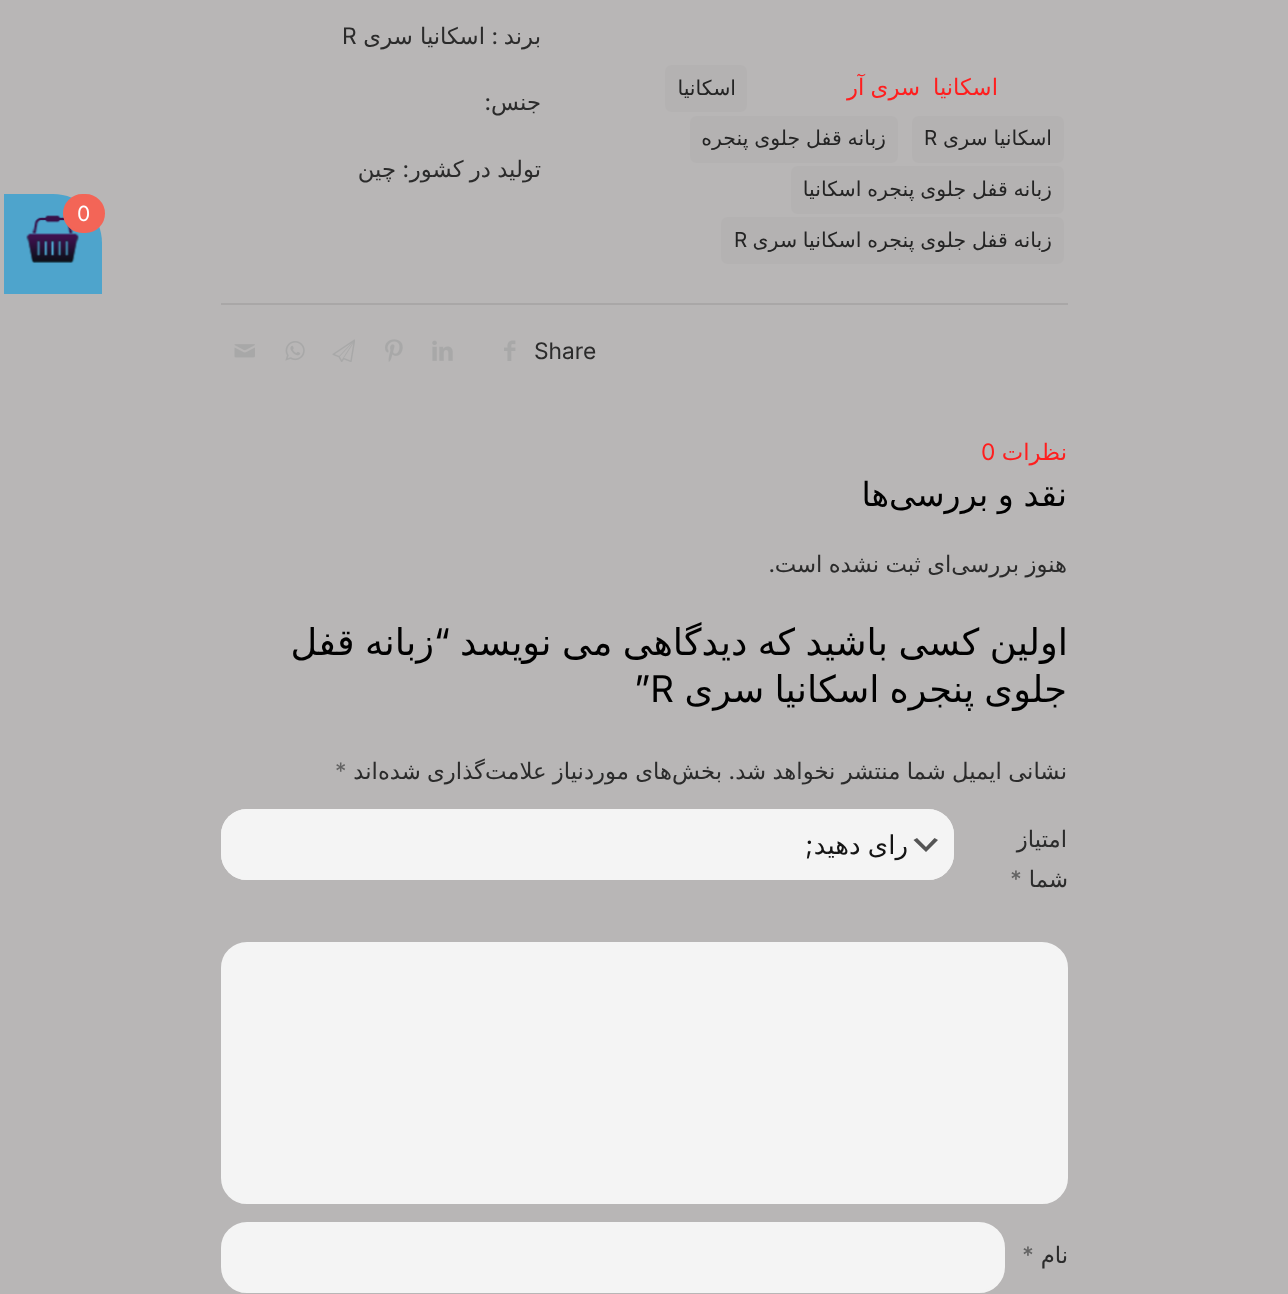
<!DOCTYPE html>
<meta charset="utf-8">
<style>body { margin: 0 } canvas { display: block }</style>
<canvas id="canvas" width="1288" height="1294"></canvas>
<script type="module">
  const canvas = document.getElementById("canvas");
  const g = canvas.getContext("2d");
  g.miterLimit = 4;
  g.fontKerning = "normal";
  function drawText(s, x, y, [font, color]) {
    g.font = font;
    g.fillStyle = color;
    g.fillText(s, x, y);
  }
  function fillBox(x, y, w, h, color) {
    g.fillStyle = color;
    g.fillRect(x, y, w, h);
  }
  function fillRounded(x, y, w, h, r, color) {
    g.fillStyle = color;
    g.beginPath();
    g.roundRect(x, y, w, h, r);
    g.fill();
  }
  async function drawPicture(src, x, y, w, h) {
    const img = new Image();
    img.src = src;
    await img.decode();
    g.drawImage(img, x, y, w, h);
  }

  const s1 = ["22.75px DejaVu Sans", "#FF1E1E"];
  const s2 = ["20.5px DejaVu Sans", "#242424"];
  const s3 = ["20.5px Inter", "#242424"];
  const s4 = ["22.75px DejaVu Sans", "#2B2B2B"];
  const s5 = ["22.75px Inter", "#2B2B2B"];
  const s6 = ["22.75px Inter", "#FF1E1E"];
  const s7 = ["33.25px DejaVu Sans", "#000000"];
  const s8 = ["36.75px DejaVu Sans", "#000000"];
  const s9 = ["36.75px Inter", "#000000"];
  const s10 = ["22.75px Inter", "#636363"];
  const s11 = ["500 22.75px Inter", "#636363"];
  const s12 = ["26px DejaVu Sans", "#141414"];
  const s13 = ["26px Inter", "#141414"];
  const s14 = ["21px Inter", "#FFFFFF"];

  fillBox(0, 0, 1288, 1294, "#B8B6B6");
  g.direction = "rtl";
  drawText("اسکانیا", 998, 95, s1);
  g.wordSpacing = "-1px";
  drawText("سری آر", 920, 95, s1);
  fillRounded(665, 65, 82, 47, 7, "#B4B2B2");
  g.wordSpacing = "0px";
  drawText("اسکانیا", 736, 95, s2);
  fillRounded(912, 116, 152, 47, 7, "#B4B2B2");
  g.wordSpacing = "-0.75px";
  drawText("اسکانیا سری", 1052, 145, s2);
  g.wordSpacing = "0px";
  g.direction = "ltr";
  drawText("R", 924, 145, s3);
  fillRounded(690, 116, 208, 47, 7, "#B4B2B2");
  g.wordSpacing = "-0.75px";
  g.direction = "rtl";
  drawText("زبانه قفل جلوی پنجره", 886, 145, s2);
  fillRounded(791, 166, 273, 48, 7, "#B4B2B2");
  drawText("زبانه قفل جلوی پنجره اسکانیا", 1052, 196, s2);
  fillRounded(721, 217, 343, 47, 7, "#B4B2B2");
  drawText("زبانه قفل جلوی پنجره اسکانیا سری", 1052, 247, s2);
  g.wordSpacing = "0px";
  g.direction = "ltr";
  drawText("R", 734, 247, s3);
  g.direction = "rtl";
  drawText("برند", 541, 44, s4);
  drawText(":", 498, 44, s5);
  drawText("اسکانیا سری", 485, 44, s4);
  g.direction = "ltr";
  drawText("R", 342, 44, s5);
  g.direction = "rtl";
  drawText("جنس", 541, 110, s4);
  drawText(":", 491, 110, s5);
  g.wordSpacing = "-1px";
  drawText("تولید در کشور", 541, 177, s4);
  g.wordSpacing = "0px";
  drawText(":", 409, 177, s5);
  drawText("چین", 396, 177, s4);
  fillBox(221, 303, 847, 2, "#A9A7A7");
  g.direction = "ltr";
  drawText("Share", 534, 359, s5);
  await drawPicture("pic1.png", 504, 340, 12, 21);
  await drawPicture("pic2.png", 432, 340, 21, 21);
  await drawPicture("pic3.png", 385, 339, 18, 23);
  await drawPicture("pic4.png", 332, 339, 23, 23);
  await drawPicture("pic5.png", 285, 341, 20, 20);
  await drawPicture("pic6.png", 234, 344, 21, 14);
  g.direction = "rtl";
  drawText("نظرات", 1067, 460, s1);
  g.direction = "ltr";
  drawText("0", 981, 460, s6);
  g.wordSpacing = "-1px";
  g.direction = "rtl";
  drawText("نقد و بررسی‌ها", 1067, 506, s7);
  drawText("هنوز بررسی‌ای ثبت نشده است", 1067, 572, s4);
  g.wordSpacing = "0px";
  drawText(".", 775, 572, s5);
  g.save();
  g.beginPath();
  g.rect(221, 620, 847, 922);
  g.clip();
  g.wordSpacing = "-1.25px";
  drawText("اولین کسی باشید که دیدگاهی می نویسد", 1068, 655, s8);
  g.restore();
  drawText("“", 450, 655, s9);
  g.wordSpacing = "-1.25px";
  drawText("زبانه قفل", 434, 655, s8);
  g.save();
  g.beginPath();
  g.rect(221, 620, 847, 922);
  g.clip();
  g.wordSpacing = "-1.5px";
  drawText("جلوی پنجره اسکانیا سری", 1067, 702, s8);
  g.restore();
  g.wordSpacing = "0px";
  g.direction = "ltr";
  drawText("”R", 634, 702, s9);
  g.save();
  g.beginPath();
  g.rect(221, 620, 847, 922);
  g.clip();
  g.wordSpacing = "-1px";
  g.direction = "rtl";
  drawText("نشانی ایمیل شما منتشر نخواهد شد", 1067, 779, s4);
  g.restore();
  g.wordSpacing = "-1px";
  g.direction = "rtl";
  drawText("بخش‌های موردنیاز علامت‌گذاری شده‌اند", 722, 779, s4);
  g.wordSpacing = "0px";
  g.direction = "ltr";
  drawText("*", 335, 779, s10);
  g.direction = "rtl";
  drawText(".", 735, 779, s5);
  drawText("امتیاز", 1067, 847, s4);
  drawText("شما", 1068, 887, s4);
  g.direction = "ltr";
  drawText("*", 1010, 887, s11);
  fillRounded(221, 809, 733, 71, 26, "#F4F4F4");
  g.fillStyle = "#555555";
  g.beginPath();
  g.moveTo(917, 838);
  g.lineTo(926, 847);
  g.lineTo(934.5, 838);
  g.lineTo(938, 840);
  g.lineTo(926, 852);
  g.lineTo(913.5, 840);
  g.closePath();
  g.fill();
  g.beginPath();
  g.roundRect(222, 810, 731, 69, 25);
  g.strokeStyle = "#F4F4F4";
  g.lineWidth = 2;
  g.stroke();
  g.wordSpacing = "-1px";
  g.direction = "rtl";
  drawText("رای دهید", 908, 854, s12);
  g.wordSpacing = "0px";
  drawText(";", 813, 854, s13);
  g.fillStyle = "#F4F4F4";
  g.beginPath();
  g.roundRect(222, 943, 845, 260, 25);
  g.fill();
  g.stroke();
  drawText("نام", 1068, 1263, s4);
  g.direction = "ltr";
  drawText("*", 1022, 1263, s11);
  g.fillStyle = "#F4F4F4";
  g.beginPath();
  g.roundRect(222, 1223, 782, 69, 25);
  g.fill();
  g.stroke();
  g.fillStyle = "#4EA4CC";
  g.beginPath();
  g.roundRect(4, 194, 98, 100, [0, 49, 0, 0]);
  g.fill();
  await drawPicture("pic7.png", 26, 215, 53, 48);
  g.fillStyle = "#F36557";
  g.beginPath();
  g.roundRect(64, 195, 40, 37, 18.5);
  g.fill();
  g.strokeStyle = "#F36557";
  g.stroke();
  drawText("0", 77, 221, s14);
</script>
